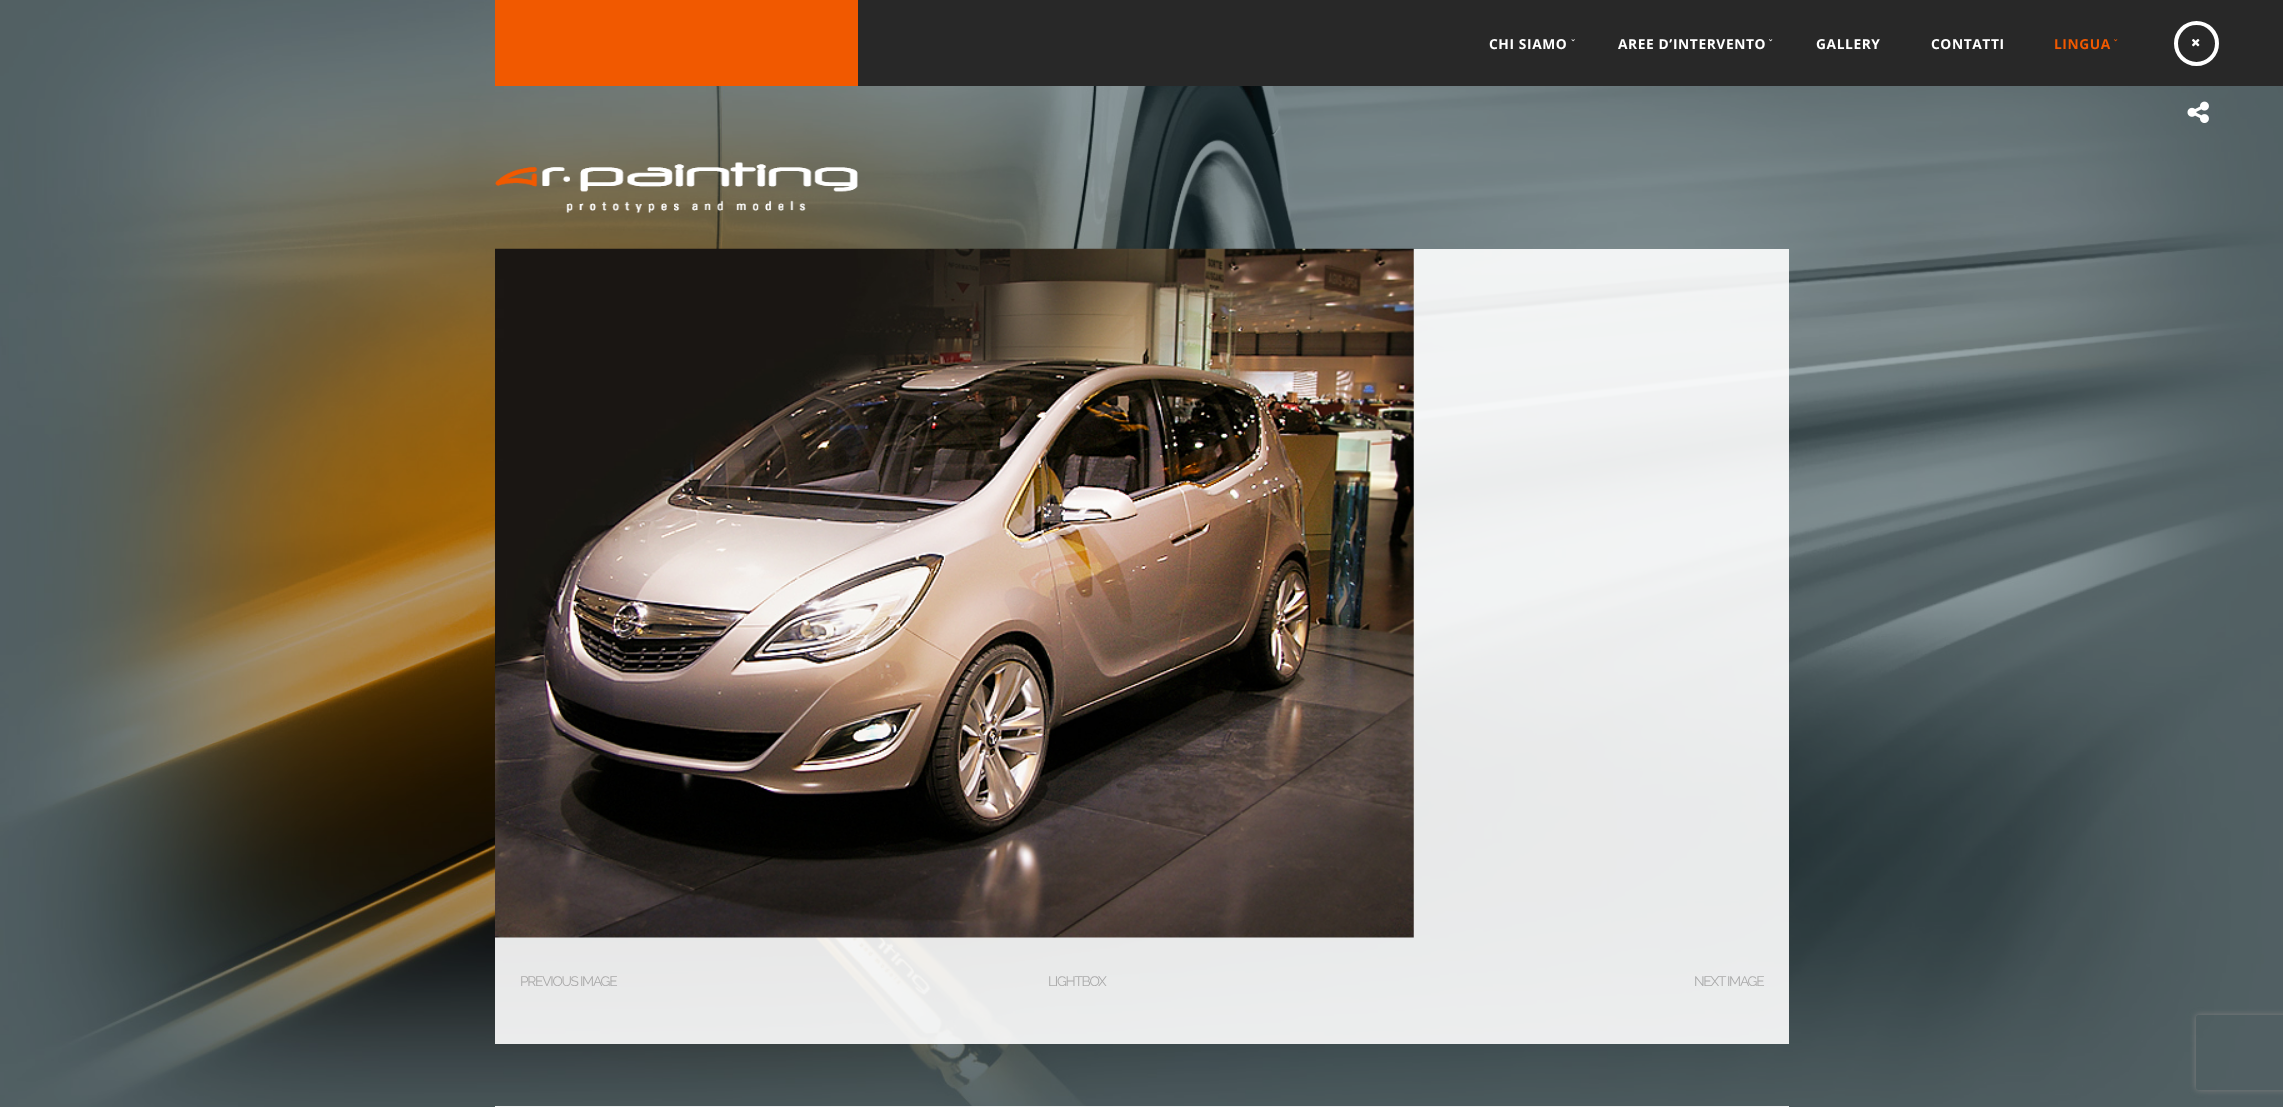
<!DOCTYPE html>
<meta charset="utf-8">
<style>body { margin: 0 } canvas { display: block }</style>
<canvas id="canvas" width="2283" height="1107"></canvas>
<script type="module">
  const canvas = document.getElementById("canvas");
  const g = canvas.getContext("2d");
  g.miterLimit = 4;
  g.fontKerning = "normal";
  function drawText(s, x, y, [font, color]) {
    g.font = font;
    g.fillStyle = color;
    g.fillText(s, x, y);
  }
  function fillBox(x, y, w, h, color) {
    g.fillStyle = color;
    g.fillRect(x, y, w, h);
  }
  async function drawPicture(src, x, y, w, h) {
    const img = new Image();
    img.src = src;
    await img.decode();
    g.drawImage(img, x, y, w, h);
  }

  const s1 = ["bold 13.75px Open Sans", "#FFFFFF"];
  const s2 = ["bold 13.75px Open Sans", "#F15900"];
  const s3 = ["13.75px Raleway", "#AAAAAA"];

  fillBox(0, 0, 2283, 1107, "#000000");
  await drawPicture("pic1.png", 0, 0, 2283, 1107);
  fillBox(495, 0, 363, 86, "#F15900");
  fillBox(858, 0, 1425, 86, "#282828");
  g.letterSpacing = "0.6px";
  drawText("CHI SIAMO", 1489, 49, s1);
  await drawPicture("pic2.png", 1571, 39, 4, 3);
  drawText("AREE D’INTERVENTO", 1618, 49, s1);
  await drawPicture("pic3.png", 1769, 39, 4, 3);
  drawText("GALLERY", 1816, 49, s1);
  drawText("CONTATTI", 1931, 49, s1);
  drawText("LINGUA", 2054, 49, s2);
  await drawPicture("pic4.png", 2114, 39, 4, 3);
  g.beginPath();
  g.arc(2196.5, 43.5, 20.5, 0, Math.PI * 2);
  g.strokeStyle = "#FFFFFF";
  g.lineWidth = 4;
  g.stroke();
  await drawPicture("pic5.png", 2192, 39, 8, 8);
  await drawPicture("pic6.png", 2187, 101, 22, 22);
  await drawPicture("pic7.png", 495, 162, 363, 51);
  fillBox(495, 249, 1294, 795, "rgba(255, 255, 255, 0.9)");
  await drawPicture("pic8.png", 495, 248, 919, 690);
  g.letterSpacing = "-1.25px";
  drawText("PREVIOUS IMAGE", 520, 986, s3);
  drawText("LIGHTBOX", 1048, 986, s3);
  drawText("NEXT IMAGE", 1694, 986, s3);
  g.save();
  g.beginPath();
  g.moveTo(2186, 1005);
  g.lineTo(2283, 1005);
  g.lineTo(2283, 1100);
  g.lineTo(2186, 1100);
  g.closePath();
  g.moveTo(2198.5, 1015);
  g.lineTo(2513.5, 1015);
  g.bezierCurveTo(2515, 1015, 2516, 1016, 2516, 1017.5);
  g.lineTo(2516, 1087.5);
  g.bezierCurveTo(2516, 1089, 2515, 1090, 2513.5, 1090);
  g.lineTo(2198.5, 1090);
  g.bezierCurveTo(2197, 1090, 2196, 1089, 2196, 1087.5);
  g.lineTo(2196, 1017.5);
  g.bezierCurveTo(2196, 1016, 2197, 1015, 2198.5, 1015);
  g.closePath();
  g.clip("evenodd");
  g.fillStyle = "#808080";
  g.filter = "blur(3px)";
  g.beginPath();
  g.roundRect(2196, 1015, 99, 75, 2.5);
  g.fill();
  g.filter = "none";
  g.restore();
  fillBox(495, 1106, 1294, 1, "rgba(255, 255, 255, 0.92)");
</script>
